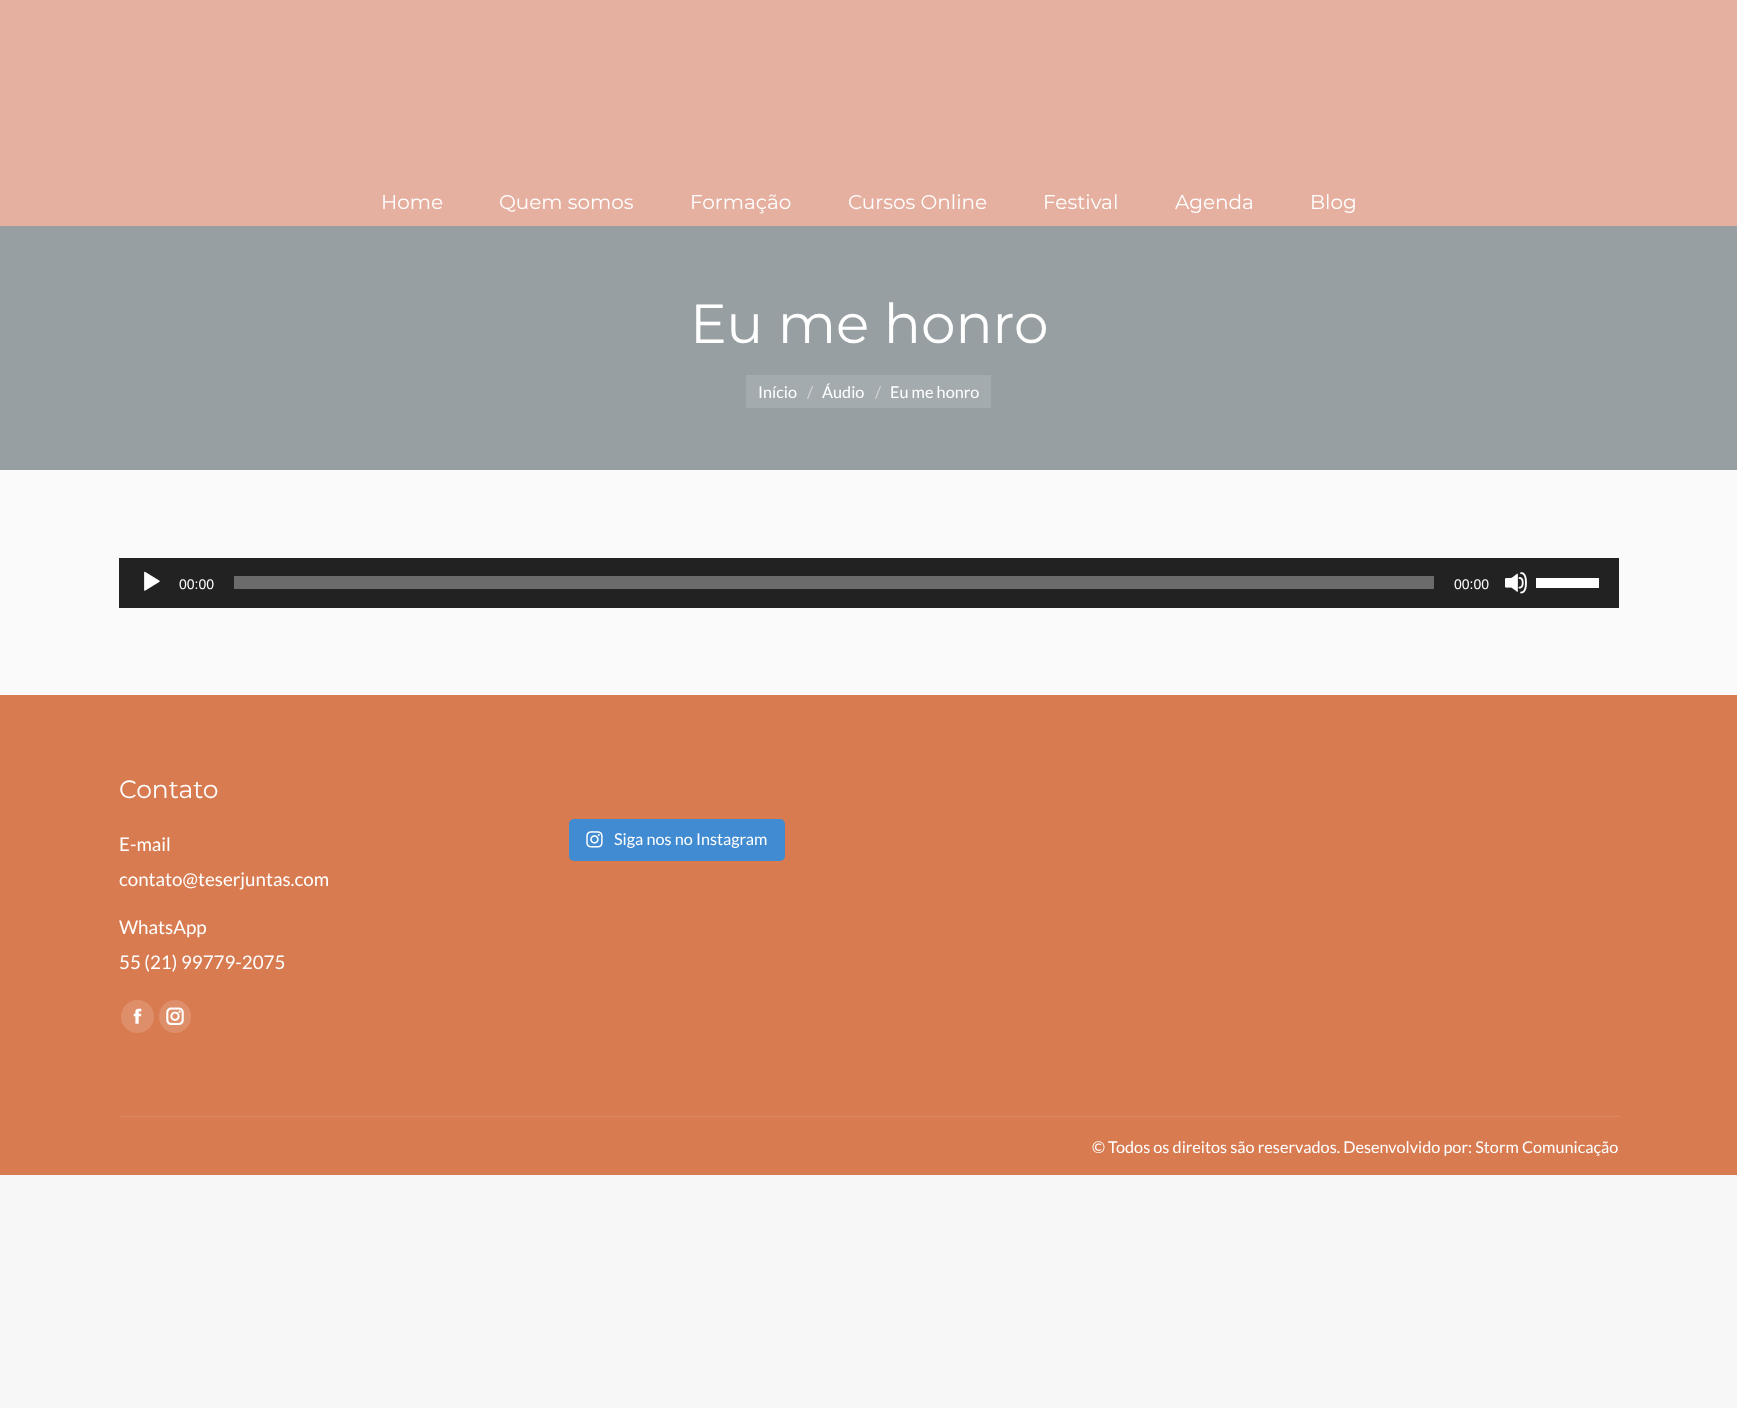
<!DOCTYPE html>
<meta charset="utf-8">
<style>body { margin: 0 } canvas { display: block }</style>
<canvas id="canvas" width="1737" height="1408"></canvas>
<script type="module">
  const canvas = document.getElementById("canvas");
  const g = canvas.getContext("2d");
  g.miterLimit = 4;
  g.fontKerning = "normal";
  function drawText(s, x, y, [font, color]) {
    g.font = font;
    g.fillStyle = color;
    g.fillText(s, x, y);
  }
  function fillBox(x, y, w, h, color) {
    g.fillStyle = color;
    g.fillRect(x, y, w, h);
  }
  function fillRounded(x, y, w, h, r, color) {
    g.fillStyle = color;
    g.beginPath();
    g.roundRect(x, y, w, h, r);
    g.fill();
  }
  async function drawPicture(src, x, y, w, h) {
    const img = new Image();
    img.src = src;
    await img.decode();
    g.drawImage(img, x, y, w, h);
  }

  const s1 = ["20px Montserrat", "#FFFFFF"];
  const s2 = ["55px Montserrat", "#FFFFFF"];
  const s3 = ["16.25px Lato", "#FFFFFF"];
  const s4 = ["16.25px Lato", "#D1D5D7"];
  const s5 = ["14px Liberation Sans", "#FFFFFF"];
  const s6 = ["25px Montserrat", "#FFFFFF"];
  const s7 = ["18.75px Lato", "#FFFFFF"];

  fillBox(0, 0, 1737, 1408, "#F7F7F7");
  fillBox(0, 470, 1737, 225, "#FBFAFA");
  fillBox(0, 0, 1737, 226, "#E5B0A0");
  drawText("Home", 381, 209, s1);
  drawText("Quem somos", 499, 209, s1);
  drawText("Formação", 690, 209, s1);
  drawText("Cursos Online", 848, 209, s1);
  drawText("Festival", 1043, 209, s1);
  drawText("Agenda", 1175, 209, s1);
  drawText("Blog", 1310, 209, s1);
  fillBox(0, 226, 1737, 244, "#979FA3");
  drawText("Eu me honro", 690, 343, s2);
  fillBox(746, 375, 245, 33, "#A3ABAE");
  drawText("Início", 758, 398, s3);
  drawText("/", 807, 398, s4);
  drawText("Áudio", 822, 398, s3);
  drawText("/", 875, 398, s4);
  drawText("Eu me honro", 890, 398, s3);
  fillBox(119, 558, 1500, 50, "#222222");
  await drawPicture("pic1.png", 144, 571, 16, 20);
  drawText("00:00", 179, 589, s5);
  fillBox(234, 576, 1200, 13, "#6B6B6B");
  drawText("00:00", 1454, 589, s5);
  await drawPicture("pic2.png", 1505, 572, 22, 22);
  fillBox(1536, 578, 63, 10, "#FFFFFF");
  fillBox(0, 695, 1737, 480, "#D87B50");
  drawText("Contato", 119, 798, s6);
  drawText("E-mail", 119, 851, s7);
  drawText("contato@teserjuntas.com", 119, 886, s7);
  drawText("WhatsApp", 119, 934, s7);
  drawText("55 (21) 99779-2075", 119, 969, s7);
  g.fillStyle = "#DE8F6A";
  g.beginPath();
  g.arc(137.5, 1016.5, 16.5, 0, Math.PI * 2);
  g.fill();
  await drawPicture("pic3.png", 133, 1008, 9, 16);
  fillRounded(159, 1000, 32, 33, 16, "#DE8F6A");
  await drawPicture("pic4.png", 166, 1007, 18, 18);
  fillRounded(569, 819, 216, 42, 5, "#408BD1");
  await drawPicture("pic5.png", 586, 831, 17, 17);
  drawText("Siga nos no Instagram", 614, 845, s3);
  fillBox(119, 1116, 1500, 1, "#DD8B65");
  drawText("© Todos os direitos são reservados. Desenvolvido por: Storm Comunicação", 1092, 1153, s3);
</script>
